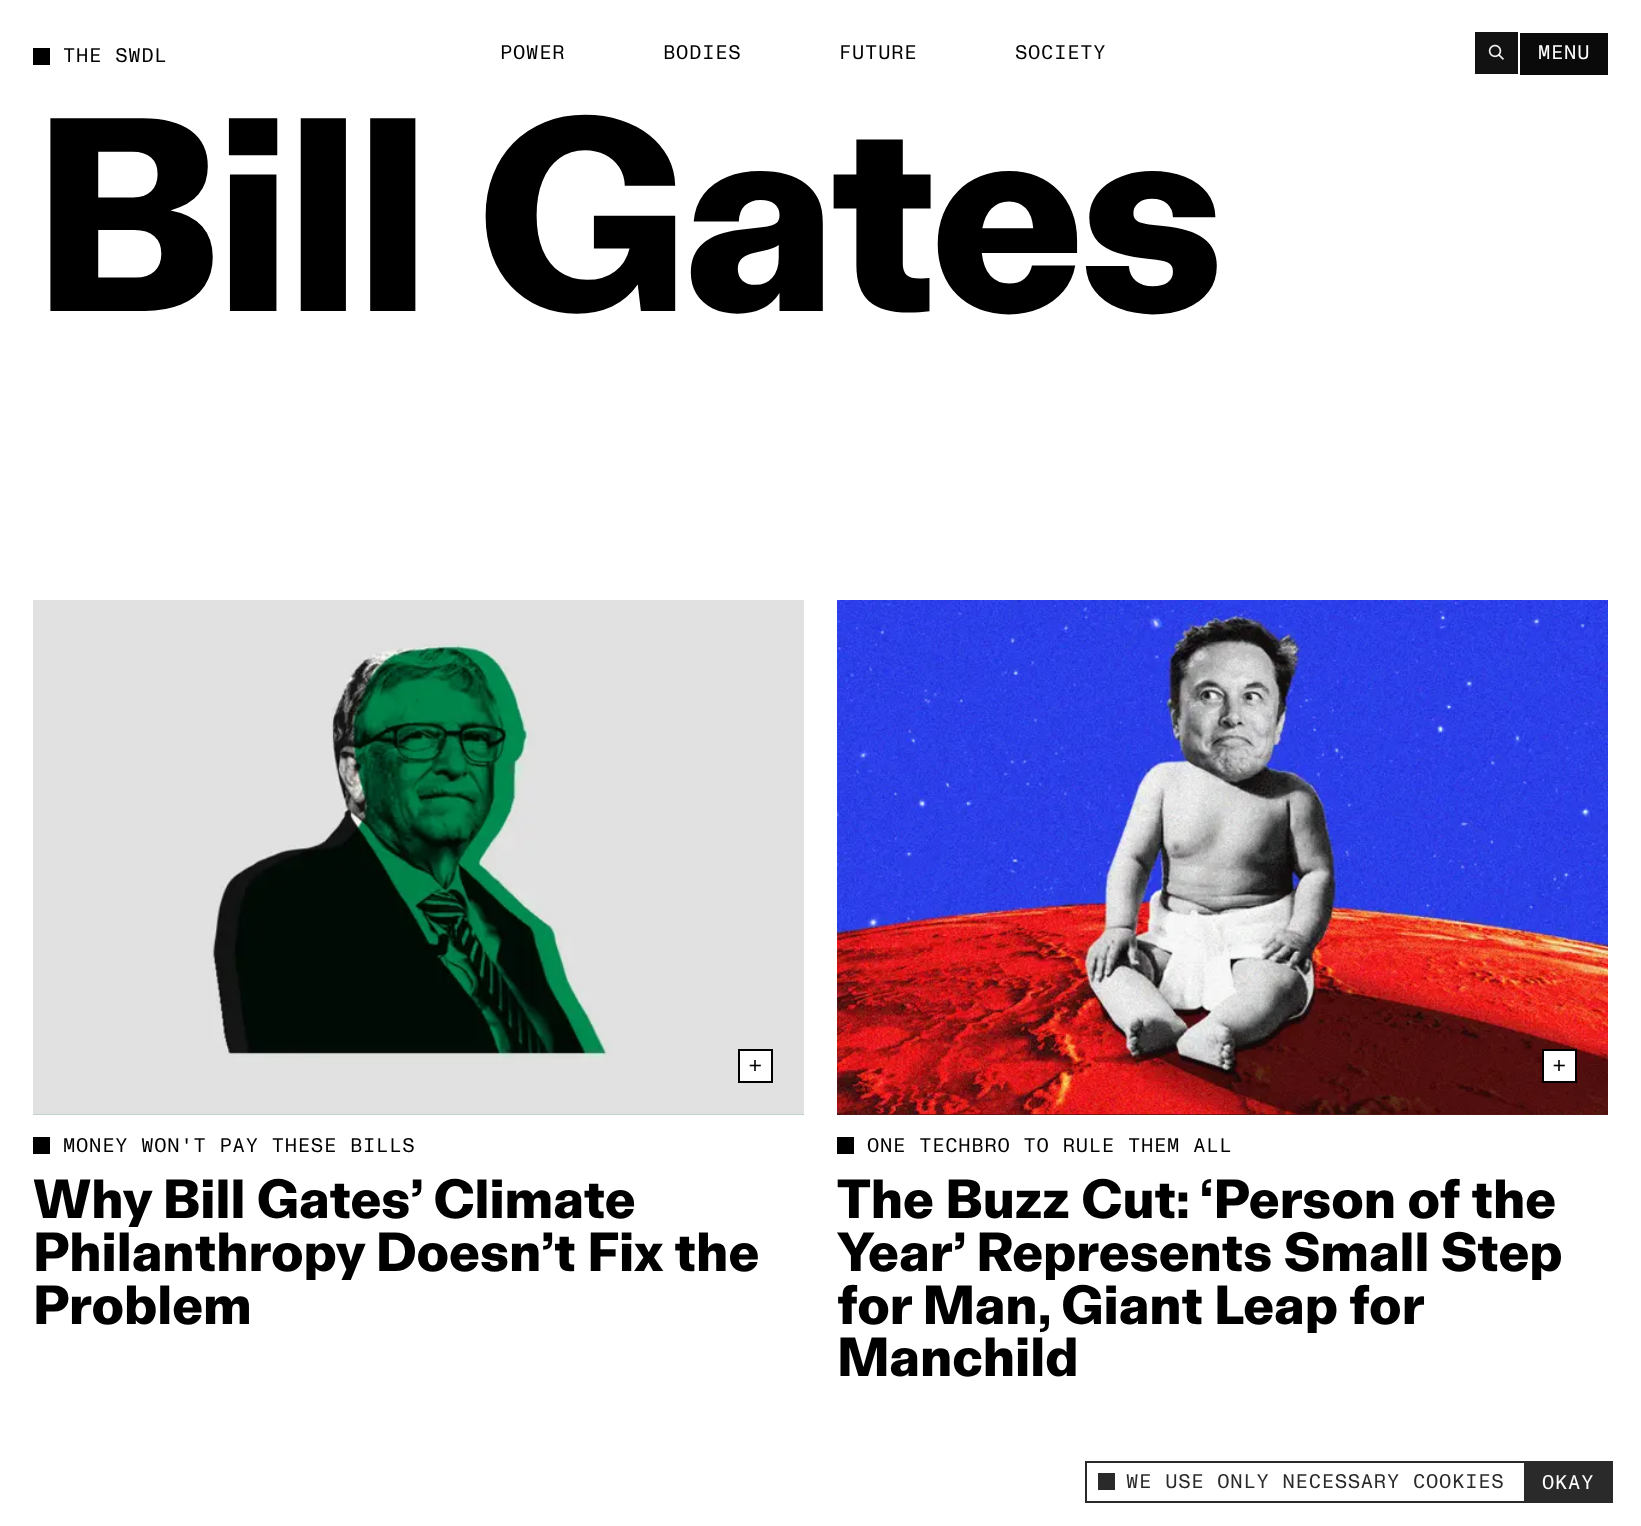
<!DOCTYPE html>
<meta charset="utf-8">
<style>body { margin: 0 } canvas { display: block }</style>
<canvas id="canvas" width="1641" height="1526"></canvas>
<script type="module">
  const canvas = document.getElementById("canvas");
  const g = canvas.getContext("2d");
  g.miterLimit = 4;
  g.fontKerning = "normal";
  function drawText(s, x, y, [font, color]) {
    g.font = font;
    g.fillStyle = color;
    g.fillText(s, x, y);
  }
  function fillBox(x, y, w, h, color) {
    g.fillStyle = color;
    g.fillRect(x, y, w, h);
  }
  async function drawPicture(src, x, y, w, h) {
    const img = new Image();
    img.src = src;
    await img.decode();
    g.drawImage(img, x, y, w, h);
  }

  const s1 = ["19.75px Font", "#000000"];
  const s2 = ["19.75px Font", "#060606"];
  const s3 = ["19.75px Font", "#FFFFFF"];
  const s4 = ["bold 264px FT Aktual", "#000000"];
  const s5 = ["bold 52.75px FT Aktual", "#000000"];
  const s6 = ["19.75px Font", "#2A2A2A"];

  fillBox(0, 0, 1641, 1526, "#FFFFFF");
  fillBox(33, 48, 17, 17, "#000000");
  g.letterSpacing = "0.8px";
  drawText("THE SWDL", 63, 62, s1);
  drawText("POWER", 500, 59, s1);
  drawText("BODIES", 663, 59, s1);
  drawText("FUTURE", 839, 59, s1);
  drawText("SOCIETY", 1015, 59, s2);
  fillBox(1475, 32, 43, 42, "#121212");
  await drawPicture("pic1.png", 1488, 44, 16, 16);
  fillBox(1520, 33, 88, 42, "#0A0A0A");
  drawText("MENU", 1538, 59, s3);
  g.letterSpacing = "-5.25px";
  drawText("Bill Gates", 33, 311, s4);
  fillBox(33, 1114, 771, 1, "#B5CEC1");
  await drawPicture("pic2.png", 33, 600, 771, 515);
  fillBox(740, 1051, 31, 30, "#FFFFFF");
  fillBox(754, 1060, 2, 11, "#333333");
  g.beginPath();
  g.moveTo(750.5, 1065.5);
  g.lineTo(760, 1065.5);
  g.strokeStyle = "#000000";
  g.lineWidth = 1.6;
  g.lineCap = "square";
  g.lineJoin = "round";
  g.stroke();
  g.lineWidth = 2;
  g.lineJoin = "miter";
  g.strokeRect(739, 1050, 33, 32);
  fillBox(33, 1137, 17, 17, "#000000");
  g.letterSpacing = "0.8px";
  drawText("MONEY WON'T PAY THESE BILLS", 63, 1152, s1);
  g.letterSpacing = "0px";
  drawText("Why Bill Gates’ Climate", 33, 1218, s5);
  drawText("Philanthropy Doesn’t Fix the", 33, 1271, s5);
  drawText("Problem", 33, 1324, s5);
  fillBox(837, 1114, 771, 1, "#511717");
  await drawPicture("pic3.png", 837, 600, 771, 515);
  fillBox(1544, 1051, 31, 30, "#FFFFFF");
  fillBox(1558, 1060, 2, 11, "#333333");
  g.beginPath();
  g.moveTo(1554.5, 1065.5);
  g.lineTo(1564, 1065.5);
  g.lineWidth = 1.6;
  g.lineJoin = "round";
  g.stroke();
  g.lineWidth = 2;
  g.lineJoin = "miter";
  g.strokeRect(1543, 1050, 33, 32);
  fillBox(837, 1137, 17, 17, "#000000");
  g.letterSpacing = "0.8px";
  drawText("ONE TECHBRO TO RULE THEM ALL", 867, 1152, s1);
  g.letterSpacing = "0px";
  drawText("The Buzz Cut: ‘Person of the", 837, 1218, s5);
  drawText("Year’ Represents Small Step", 837, 1271, s5);
  g.wordSpacing = "-0.5px";
  drawText("for Man, Giant Leap for", 837, 1324, s5);
  g.wordSpacing = "0px";
  drawText("Manchild", 837, 1376, s5);
  g.strokeStyle = "#2A2A2A";
  g.strokeRect(1086, 1462, 526, 40);
  fillBox(1098, 1473, 17, 17, "#2A2A2A");
  g.letterSpacing = "0.8px";
  drawText("WE USE ONLY NECESSARY COOKIES", 1126, 1488, s6);
  fillBox(1526, 1463, 85, 38, "#2A2A2A");
  fillBox(1524, 1463, 2, 39, "#2A2A2A");
  drawText("OKAY", 1542, 1489, s3);
</script>
